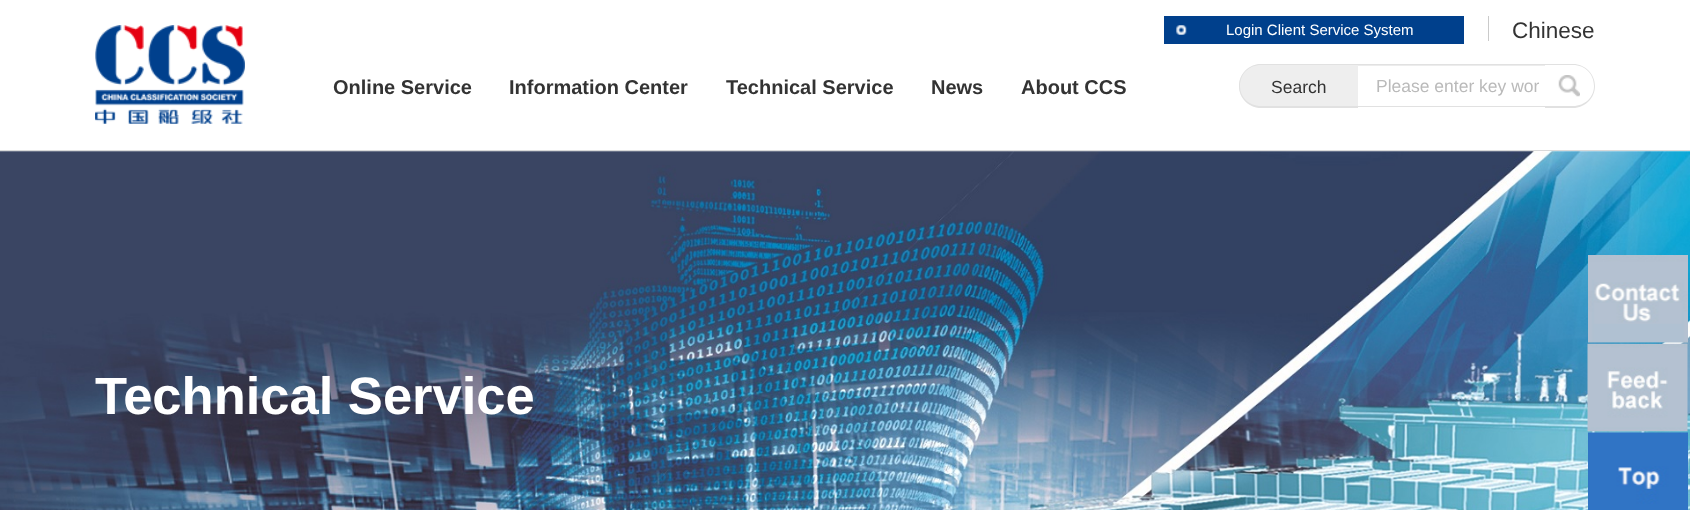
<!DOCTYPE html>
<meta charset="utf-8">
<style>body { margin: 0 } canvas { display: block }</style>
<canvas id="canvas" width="1690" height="510"></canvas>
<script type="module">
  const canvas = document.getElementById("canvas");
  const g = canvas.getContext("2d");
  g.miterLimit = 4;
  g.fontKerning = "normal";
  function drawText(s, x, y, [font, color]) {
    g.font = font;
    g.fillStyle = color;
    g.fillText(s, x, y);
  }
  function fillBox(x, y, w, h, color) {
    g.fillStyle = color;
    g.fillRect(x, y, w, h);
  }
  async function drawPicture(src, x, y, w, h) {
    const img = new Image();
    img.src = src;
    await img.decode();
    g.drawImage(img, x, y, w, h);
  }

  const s1 = ["bold 20px Liberation Sans", "#333333"];
  const s2 = ["15px Liberation Sans", "#FFFFFF"];
  const s3 = ["22.5px Liberation Sans", "#333333"];
  const s4 = ["17.5px Liberation Sans", "#333333"];
  const s5 = ["17.5px Liberation Sans", "#BABABA"];
  const s6 = ["bold 52.5px Liberation Sans", "#FFFFFF"];

  fillBox(0, 0, 1690, 510, "#FFFFFF");
  fillBox(0, 150, 1690, 1, "#D9D9D9");
  await drawPicture("pic1.png", 95, 25, 150, 99);
  drawText("Online Service", 333, 94, s1);
  drawText("Information Center", 509, 94, s1);
  drawText("Technical Service", 726, 94, s1);
  drawText("News", 931, 94, s1);
  drawText("About CCS", 1021, 94, s1);
  fillBox(1164, 16, 300, 28, "#00408C");
  await drawPicture("pic2.png", 1176, 25, 11, 10);
  drawText("Login Client Service System", 1226, 35, s2);
  fillBox(1488, 16, 1, 25, "#CACACA");
  drawText("Chinese", 1512, 38, s3);
  g.fillStyle = "#EEEEEE";
  g.beginPath();
  g.roundRect(1239, 64, 119, 44, [22, 0, 0, 22]);
  g.fill();
  g.fillStyle = "#E1E1E1";
  g.beginPath();
  g.moveTo(1261, 64);
  g.lineTo(1358, 64);
  g.lineTo(1358, 108);
  g.lineTo(1261, 108);
  g.bezierCurveTo(1249, 108, 1239, 98, 1239, 86);
  g.bezierCurveTo(1239, 74, 1249, 64, 1261, 64);
  g.closePath();
  g.moveTo(1261, 65);
  g.lineTo(1358, 65);
  g.lineTo(1358, 106);
  g.lineTo(1261, 106);
  g.bezierCurveTo(1249, 106, 1240, 97, 1240, 86);
  g.bezierCurveTo(1240, 74, 1249, 65, 1261, 65);
  g.closePath();
  g.fill("evenodd");
  drawText("Search", 1271, 93, s4);
  fillBox(1358, 65, 187, 1, "#ECECEC");
  fillBox(1358, 64, 187, 1, "#E1E1E1");
  fillBox(1358, 106, 187, 1, "#E1E1E1");
  drawText("Please enter key wor", 1376, 92, s5);
  await drawPicture("pic3.png", 1558, 75, 22, 22);
  g.fillStyle = "#E1E1E1";
  g.beginPath();
  g.moveTo(1545, 64);
  g.lineTo(1573, 64);
  g.bezierCurveTo(1585, 64, 1595, 74, 1595, 86);
  g.bezierCurveTo(1595, 98, 1585, 108, 1573, 108);
  g.lineTo(1545, 108);
  g.closePath();
  g.moveTo(1545, 65);
  g.lineTo(1573, 65);
  g.bezierCurveTo(1585, 65, 1594, 74, 1594, 86);
  g.bezierCurveTo(1594, 97, 1585, 106, 1573, 106);
  g.lineTo(1545, 106);
  g.closePath();
  g.fill("evenodd");
  await drawPicture("pic4.png", 0, 151, 1690, 359);
  drawText("Technical Service", 95, 414, s6);
  await drawPicture("pic5.png", 1588, 255, 100, 88);
  await drawPicture("pic6.png", 1587, 343, 101, 89);
  await drawPicture("pic7.png", 1588, 432, 100, 78);
</script>
